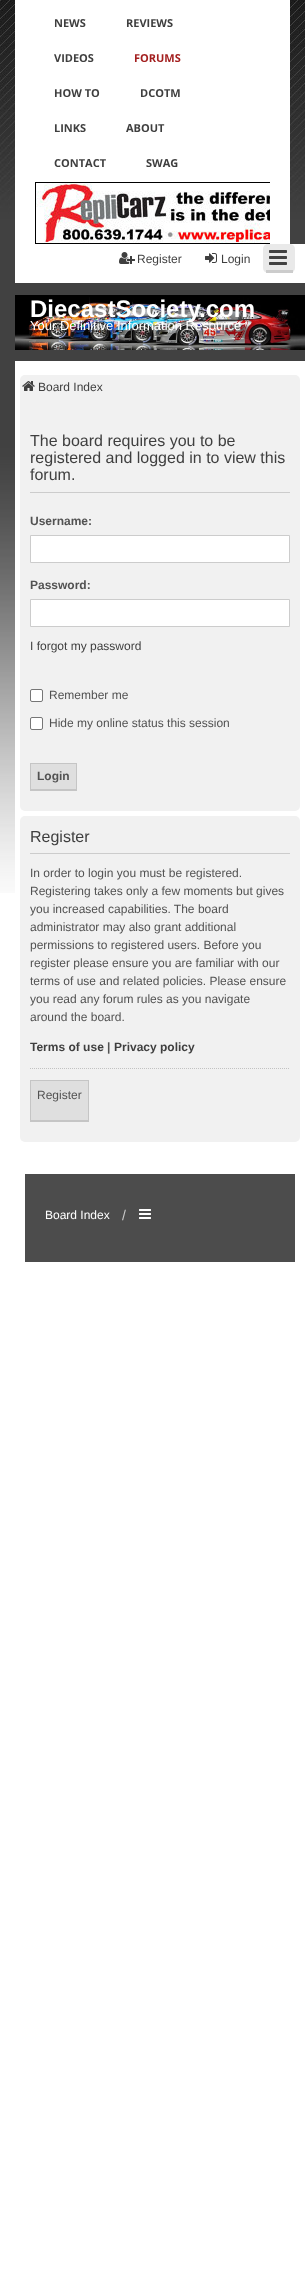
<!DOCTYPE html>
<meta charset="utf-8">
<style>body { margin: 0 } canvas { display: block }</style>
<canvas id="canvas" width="305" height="2279"></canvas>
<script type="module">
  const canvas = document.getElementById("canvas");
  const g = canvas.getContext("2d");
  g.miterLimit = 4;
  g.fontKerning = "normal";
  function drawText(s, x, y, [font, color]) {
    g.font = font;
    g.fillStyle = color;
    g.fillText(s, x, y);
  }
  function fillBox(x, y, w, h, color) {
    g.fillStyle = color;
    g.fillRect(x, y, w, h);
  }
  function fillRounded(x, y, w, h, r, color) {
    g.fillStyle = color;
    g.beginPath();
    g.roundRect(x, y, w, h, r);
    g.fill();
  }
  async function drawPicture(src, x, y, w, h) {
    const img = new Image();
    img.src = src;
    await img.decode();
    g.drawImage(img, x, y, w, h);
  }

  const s1 = ["bold 11px Open Sans", "#3F3F3F"];
  const s2 = ["bold 11px Open Sans", "#A31F1F"];
  const s3 = ["12px Liberation Sans", "#3F3F3F"];
  const s4 = ["bold 24px Liberation Sans", "#FFFFFF"];
  const s5 = ["13px Liberation Sans", "#FFFFFF"];
  const s6 = ["16px Liberation Sans", "#3F3F3F"];
  const s7 = ["bold 12px Liberation Sans", "#525252"];
  const s8 = ["12px Liberation Sans", "#525252"];
  const s9 = ["bold 12px Liberation Sans", "#3F3F3F"];
  const s10 = ["12px Liberation Sans", "#FFFFFF"];
  const s11 = ["14px Liberation Sans", "#CACACA"];

  fillBox(0, 0, 305, 2279, "#FFFFFF");
  await drawPicture("pic1.png", 0, 0, 305, 893);
  fillBox(15, 0, 275, 244, "#FFFFFF");
  drawText("NEWS", 54, 27, s1);
  drawText("REVIEWS", 126, 27, s1);
  drawText("VIDEOS", 54, 62, s1);
  drawText("FORUMS", 134, 62, s2);
  drawText("HOW TO", 54, 97, s1);
  drawText("DCOTM", 140, 97, s1);
  drawText("LINKS", 54, 132, s1);
  drawText("ABOUT", 126, 132, s1);
  drawText("CONTACT", 54, 167, s1);
  drawText("SWAG", 146, 167, s1);
  await drawPicture("pic2.png", 35, 182, 235, 62);
  fillBox(15, 244, 290, 39, "#FFFFFF");
  await drawPicture("pic3.png", 119, 252, 16, 12);
  drawText("Register", 137, 263, s3);
  await drawPicture("pic4.png", 205, 253, 12, 10);
  drawText("Login", 221, 263, s3);
  fillRounded(263, 244, 32, 29, 5, "#E9E9E9");
  fillBox(266, 270, 27, 3, "#CCCCCC");
  await drawPicture("pic5.png", 269, 250, 18, 15);
  await drawPicture("pic6.png", 15, 295, 290, 55);
  drawText("DiecastSociety.com", 30, 317, s4);
  drawText("Your Definitive Information Resource", 30, 330, s5);
  fillBox(15, 361, 290, 532, "#FFFFFF");
  fillRounded(20, 375, 280, 436, 5, "#F1F1F1");
  await drawPicture("pic7.png", 22, 381, 13, 10);
  drawText("Board Index", 38, 391, s3);
  fillBox(30, 492, 260, 1, "#CCCCCC");
  drawText("The board requires you to be", 30, 446, s6);
  drawText("registered and logged in to view this", 30, 463, s6);
  drawText("forum.", 30, 480, s6);
  drawText("Username:", 30, 525, s7);
  g.fillStyle = "#FFFFFF";
  g.beginPath();
  g.rect(30.5, 535.5, 259, 27);
  g.fill();
  g.strokeStyle = "#CCCCCC";
  g.stroke();
  drawText("Password:", 30, 589, s7);
  g.fillStyle = "#FFFFFF";
  g.beginPath();
  g.rect(30.5, 599.5, 259, 27);
  g.fill();
  g.stroke();
  drawText("I forgot my password", 30, 650, s3);
  g.fillStyle = "#FFFFFF";
  g.beginPath();
  g.roundRect(30.5, 689.5, 12, 12, 1.5);
  g.fill();
  g.strokeStyle = "#767676";
  g.stroke();
  drawText("Remember me", 49, 699, s8);
  g.fillStyle = "#FFFFFF";
  g.beginPath();
  g.roundRect(30.5, 717.5, 12, 12, 1.5);
  g.fill();
  g.stroke();
  drawText("Hide my online status this session", 49, 727, s8);
  fillBox(31, 764, 45, 25, "#DFDFDF");
  fillBox(30, 763, 47, 1, "#C5C5C5");
  fillBox(76, 763, 1, 28, "#C5C5C5");
  fillBox(30, 789, 47, 2, "#C5C5C5");
  fillBox(30, 763, 1, 28, "#C5C5C5");
  drawText("Login", 37, 780, s7);
  fillRounded(20, 816, 280, 326, 5, "#F1F1F1");
  fillBox(30, 853, 260, 1, "#CCCCCC");
  drawText("Register", 30, 842, s6);
  drawText("In order to login you must be registered.", 30, 877, s8);
  drawText("Registering takes only a few moments but gives", 30, 895, s8);
  drawText("you increased capabilities. The board", 30, 913, s8);
  drawText("administrator may also grant additional", 30, 931, s8);
  drawText("permissions to registered users. Before you", 30, 949, s8);
  drawText("register please ensure you are familiar with our", 30, 967, s8);
  drawText("terms of use and related policies. Please ensure", 30, 985, s8);
  drawText("you read any forum rules as you navigate", 30, 1003, s8);
  drawText("around the board.", 30, 1021, s8);
  drawText("Terms of use", 30, 1051, s9);
  drawText("|", 107, 1051, s7);
  drawText("Privacy policy", 114, 1051, s9);
  g.beginPath();
  g.moveTo(30, 1068.5);
  g.lineTo(290, 1068.5);
  g.strokeStyle = "#C2C2C2";
  g.setLineDash([1, 1]);
  g.stroke();
  fillBox(31, 1081, 57, 39, "#DFDFDF");
  fillBox(30, 1080, 59, 1, "#C5C5C5");
  fillBox(88, 1080, 1, 42, "#C5C5C5");
  fillBox(30, 1120, 59, 2, "#C5C5C5");
  fillBox(30, 1080, 1, 42, "#C5C5C5");
  drawText("Register", 37, 1099, s8);
  fillBox(25, 1174, 270, 88, "#4C4C4C");
  drawText("Board Index", 45, 1219, s10);
  drawText("/", 122, 1220, s11);
  await drawPicture("pic8.png", 139, 1209, 12, 10);
</script>
